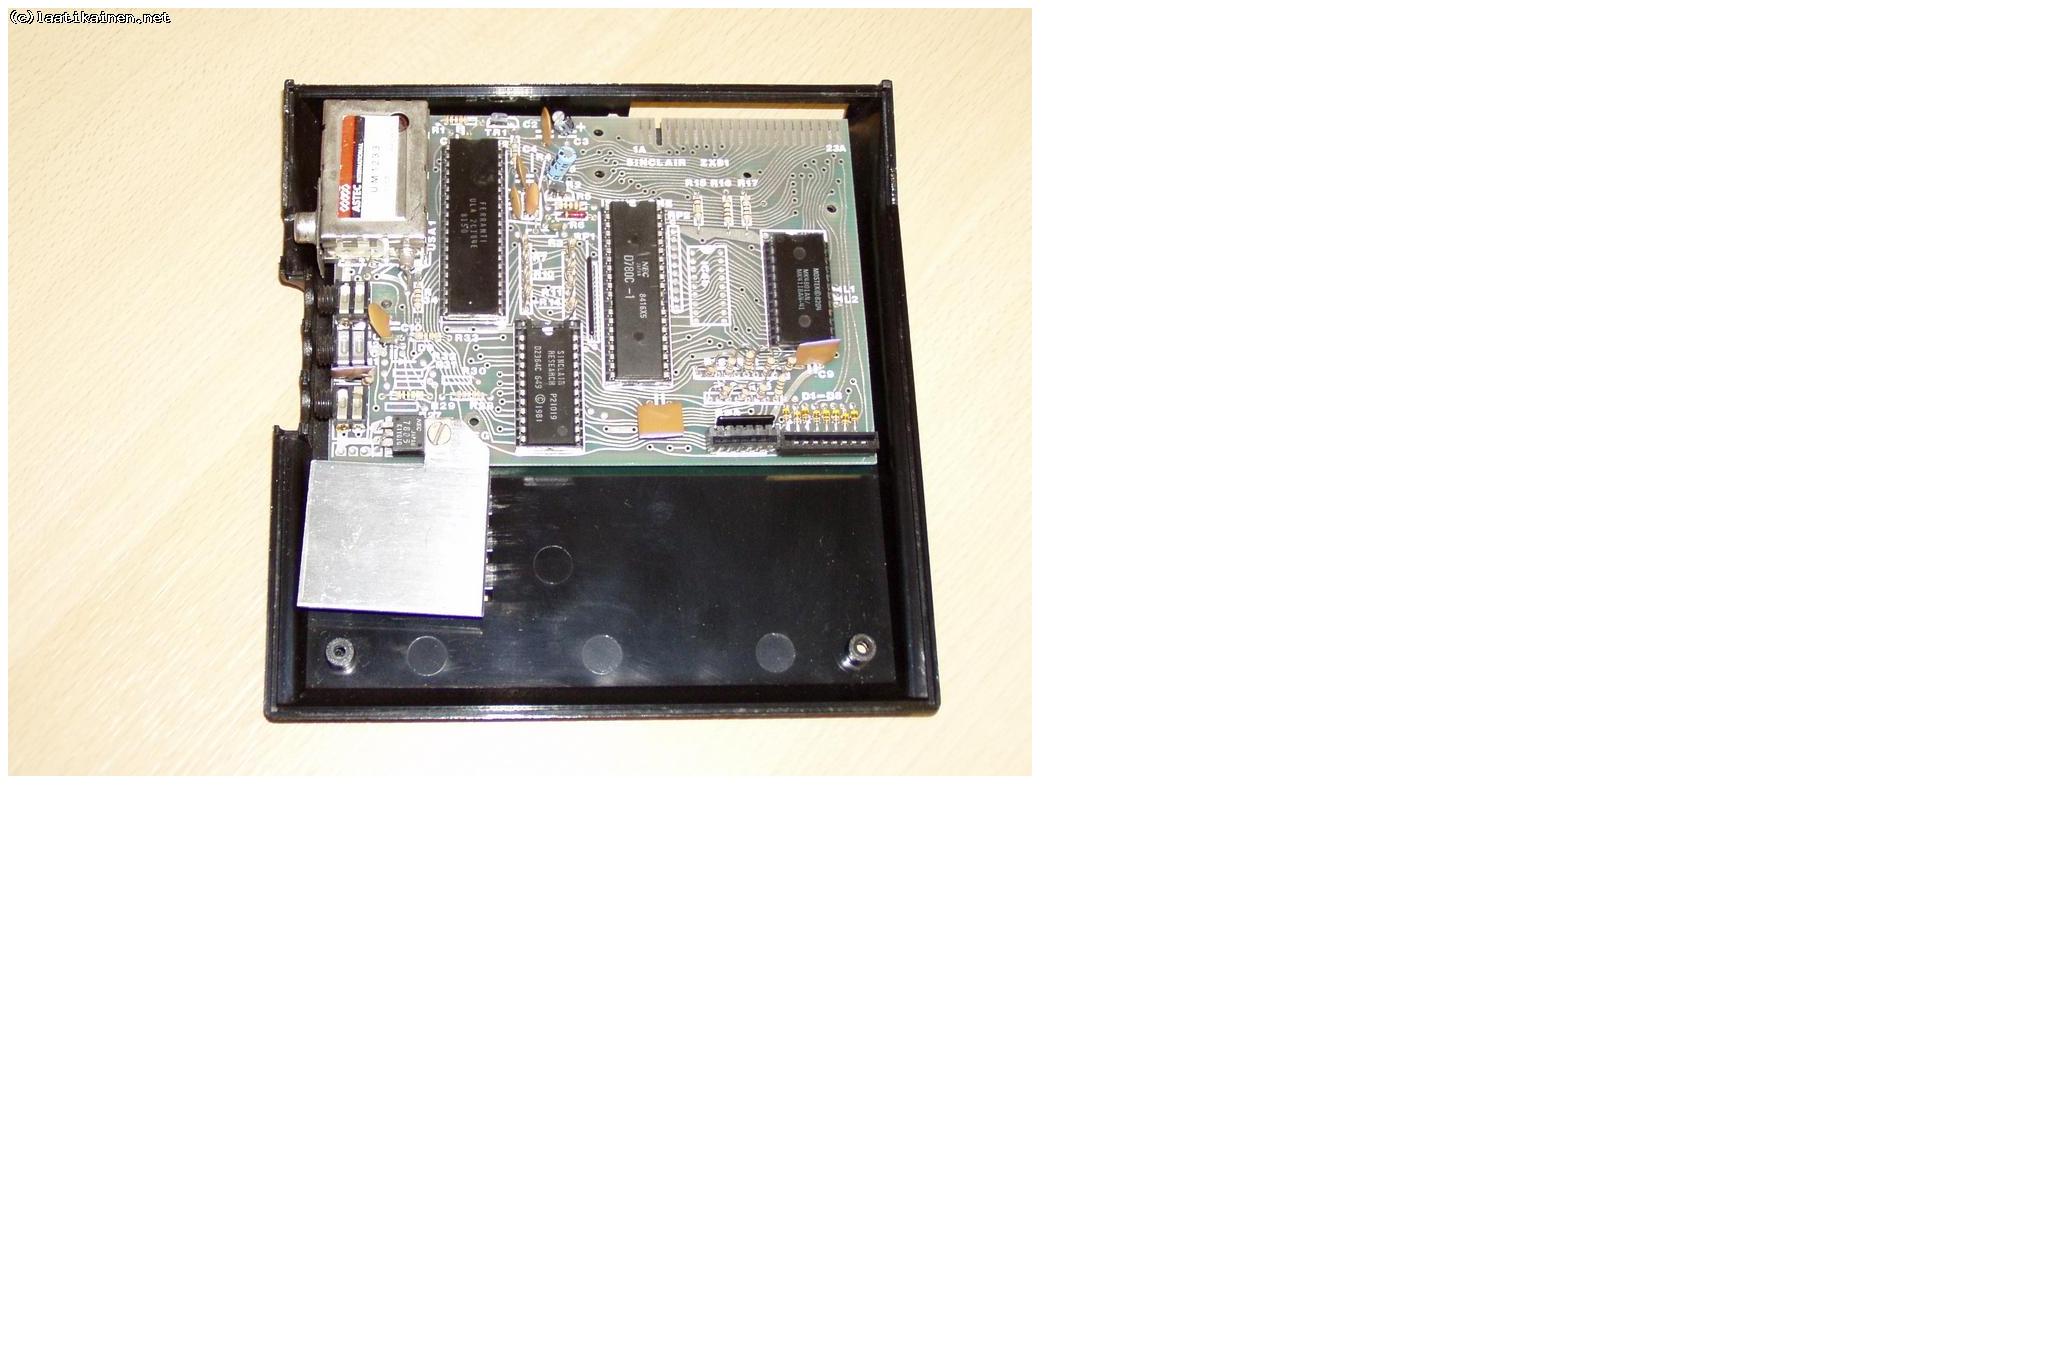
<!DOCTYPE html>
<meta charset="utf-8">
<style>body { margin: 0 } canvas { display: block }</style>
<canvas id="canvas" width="2047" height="1359"></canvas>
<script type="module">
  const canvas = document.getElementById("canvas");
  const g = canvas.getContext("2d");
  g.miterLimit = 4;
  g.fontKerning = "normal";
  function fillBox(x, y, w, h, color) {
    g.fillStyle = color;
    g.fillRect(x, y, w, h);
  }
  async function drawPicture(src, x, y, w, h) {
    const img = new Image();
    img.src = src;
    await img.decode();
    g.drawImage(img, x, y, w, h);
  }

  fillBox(0, 0, 2047, 1359, "#FFFFFF");
  await drawPicture("pic1.png", 8, 8, 1024, 768);
</script>
